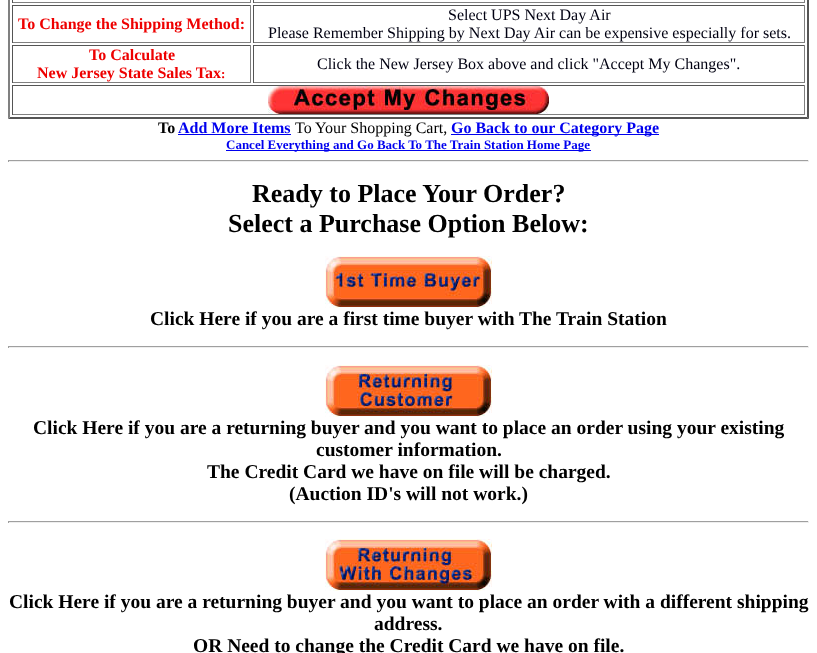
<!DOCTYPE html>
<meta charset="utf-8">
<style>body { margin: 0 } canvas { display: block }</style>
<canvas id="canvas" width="817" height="653"></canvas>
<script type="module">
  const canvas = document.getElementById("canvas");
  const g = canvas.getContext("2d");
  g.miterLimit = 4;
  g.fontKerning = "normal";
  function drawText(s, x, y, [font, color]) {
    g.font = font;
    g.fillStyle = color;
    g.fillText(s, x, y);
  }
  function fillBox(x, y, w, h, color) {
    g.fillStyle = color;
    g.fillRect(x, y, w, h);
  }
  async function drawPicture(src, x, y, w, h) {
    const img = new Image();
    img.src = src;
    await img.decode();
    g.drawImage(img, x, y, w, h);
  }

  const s1 = ["bold 16px Liberation Serif", "#EE0000"];
  const s2 = ["16px Liberation Serif", "#000011"];
  const s3 = ["bold 13px Liberation Serif", "#EE0000"];
  const s4 = ["bold 16px Liberation Serif", "#000000"];
  const s5 = ["bold 16px Liberation Serif", "#0000EE"];
  const s6 = ["16px Liberation Serif", "#000000"];
  const s7 = ["bold 13px Liberation Serif", "#0000EE"];
  const s8 = ["bold 26px Liberation Serif", "#000000"];
  const s9 = ["bold 19.5px Liberation Serif", "#000000"];

  fillBox(0, 0, 817, 653, "#FFFFFF");
  g.fillStyle = "#555555";
  g.beginPath();
  g.moveTo(809, -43);
  g.lineTo(809, 119);
  g.lineTo(807, 117);
  g.lineTo(807, -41);
  g.closePath();
  g.fill();
  g.beginPath();
  g.moveTo(809, 119);
  g.lineTo(8, 119);
  g.lineTo(10, 117);
  g.lineTo(807, 117);
  g.closePath();
  g.fill();
  g.fillStyle = "#808080";
  g.beginPath();
  g.moveTo(8, 119);
  g.lineTo(8, -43);
  g.lineTo(10, -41);
  g.lineTo(10, 117);
  g.closePath();
  g.fill();
  fillBox(250, 0, 1, 3, "#808080");
  fillBox(12, 2, 239, 1, "#808080");
  fillBox(12, 0, 1, 3, "#555555");
  fillBox(804, 0, 1, 3, "#808080");
  fillBox(253, 2, 552, 1, "#808080");
  fillBox(253, 0, 1, 3, "#555555");
  fillBox(12, 5, 239, 1, "#555555");
  fillBox(250, 5, 1, 38, "#808080");
  fillBox(12, 42, 239, 1, "#808080");
  fillBox(12, 5, 1, 38, "#555555");
  drawText("To Change the Shipping Method:", 18, 29, s1);
  fillBox(253, 5, 552, 1, "#555555");
  fillBox(804, 5, 1, 38, "#808080");
  fillBox(253, 42, 552, 1, "#808080");
  fillBox(253, 5, 1, 38, "#555555");
  drawText("Select UPS Next Day Air", 448, 20, s2);
  drawText("Please Remember Shipping by Next Day Air can be expensive especially for sets.", 268, 38, s2);
  fillBox(12, 45, 239, 1, "#555555");
  fillBox(250, 45, 1, 38, "#808080");
  fillBox(12, 82, 239, 1, "#808080");
  fillBox(12, 45, 1, 38, "#555555");
  drawText("To Calculate", 89, 60, s1);
  drawText("New Jersey State Sales Tax", 37, 78, s1);
  drawText(":", 221, 78, s3);
  fillBox(253, 45, 552, 1, "#555555");
  fillBox(804, 45, 1, 38, "#808080");
  fillBox(253, 82, 552, 1, "#808080");
  fillBox(253, 45, 1, 38, "#555555");
  drawText("Click the New Jersey Box above and click \"Accept My Changes\".", 317, 69, s2);
  fillBox(12, 85, 793, 1, "#555555");
  fillBox(804, 85, 1, 30, "#808080");
  fillBox(12, 114, 793, 1, "#808080");
  fillBox(12, 85, 1, 30, "#555555");
  await drawPicture("pic1.png", 268, 86, 281, 28);
  drawText("To", 158, 133, s4);
  drawText("Add More Items", 178, 133, s5);
  fillBox(178, 134, 113, 1, "#0000EE");
  drawText("To Your Shopping Cart,", 295, 133, s6);
  fillBox(451, 134, 208, 1, "#0000EE");
  drawText("Go Back to our Category Page", 451, 133, s5);
  fillBox(226, 150, 365, 1, "#0000EE");
  drawText("Cancel Everything and Go Back To The Train Station Home Page", 226, 149, s7);
  fillBox(8, 160, 801, 1, "#9F9F9F");
  fillBox(808, 160, 1, 2, "#EEEEEE");
  fillBox(8, 161, 801, 1, "#EEEEEE");
  fillBox(8, 160, 1, 2, "#9F9F9F");
  drawText("Ready to Place Your Order?", 252, 202, s8);
  drawText("Select a Purchase Option Below:", 228, 232, s8);
  await drawPicture("pic2.png", 325, 256, 167, 52);
  drawText("Click Here if you are a first time buyer with The Train Station", 150, 325, s9);
  fillBox(8, 346, 801, 1, "#9F9F9F");
  fillBox(808, 346, 1, 2, "#EEEEEE");
  fillBox(8, 347, 801, 1, "#EEEEEE");
  fillBox(8, 346, 1, 2, "#9F9F9F");
  await drawPicture("pic3.png", 325, 365, 167, 52);
  drawText("Click Here if you are a returning buyer and you want to place an order using your existing", 33, 434, s9);
  drawText("customer information.", 316, 456, s9);
  drawText("The Credit Card we have on file will be charged.", 207, 478, s9);
  drawText("(Auction ID's will not work.)", 289, 500, s9);
  fillBox(8, 521, 801, 1, "#9F9F9F");
  fillBox(808, 521, 1, 2, "#EEEEEE");
  fillBox(8, 522, 801, 1, "#EEEEEE");
  fillBox(8, 521, 1, 2, "#9F9F9F");
  await drawPicture("pic4.png", 325, 539, 167, 52);
  drawText("Click Here if you are a returning buyer and you want to place an order with a different shipping", 9, 608, s9);
  drawText("address.", 374, 630, s9);
  drawText("OR Need to change the Credit Card we have on file.", 193, 652, s9);
</script>
